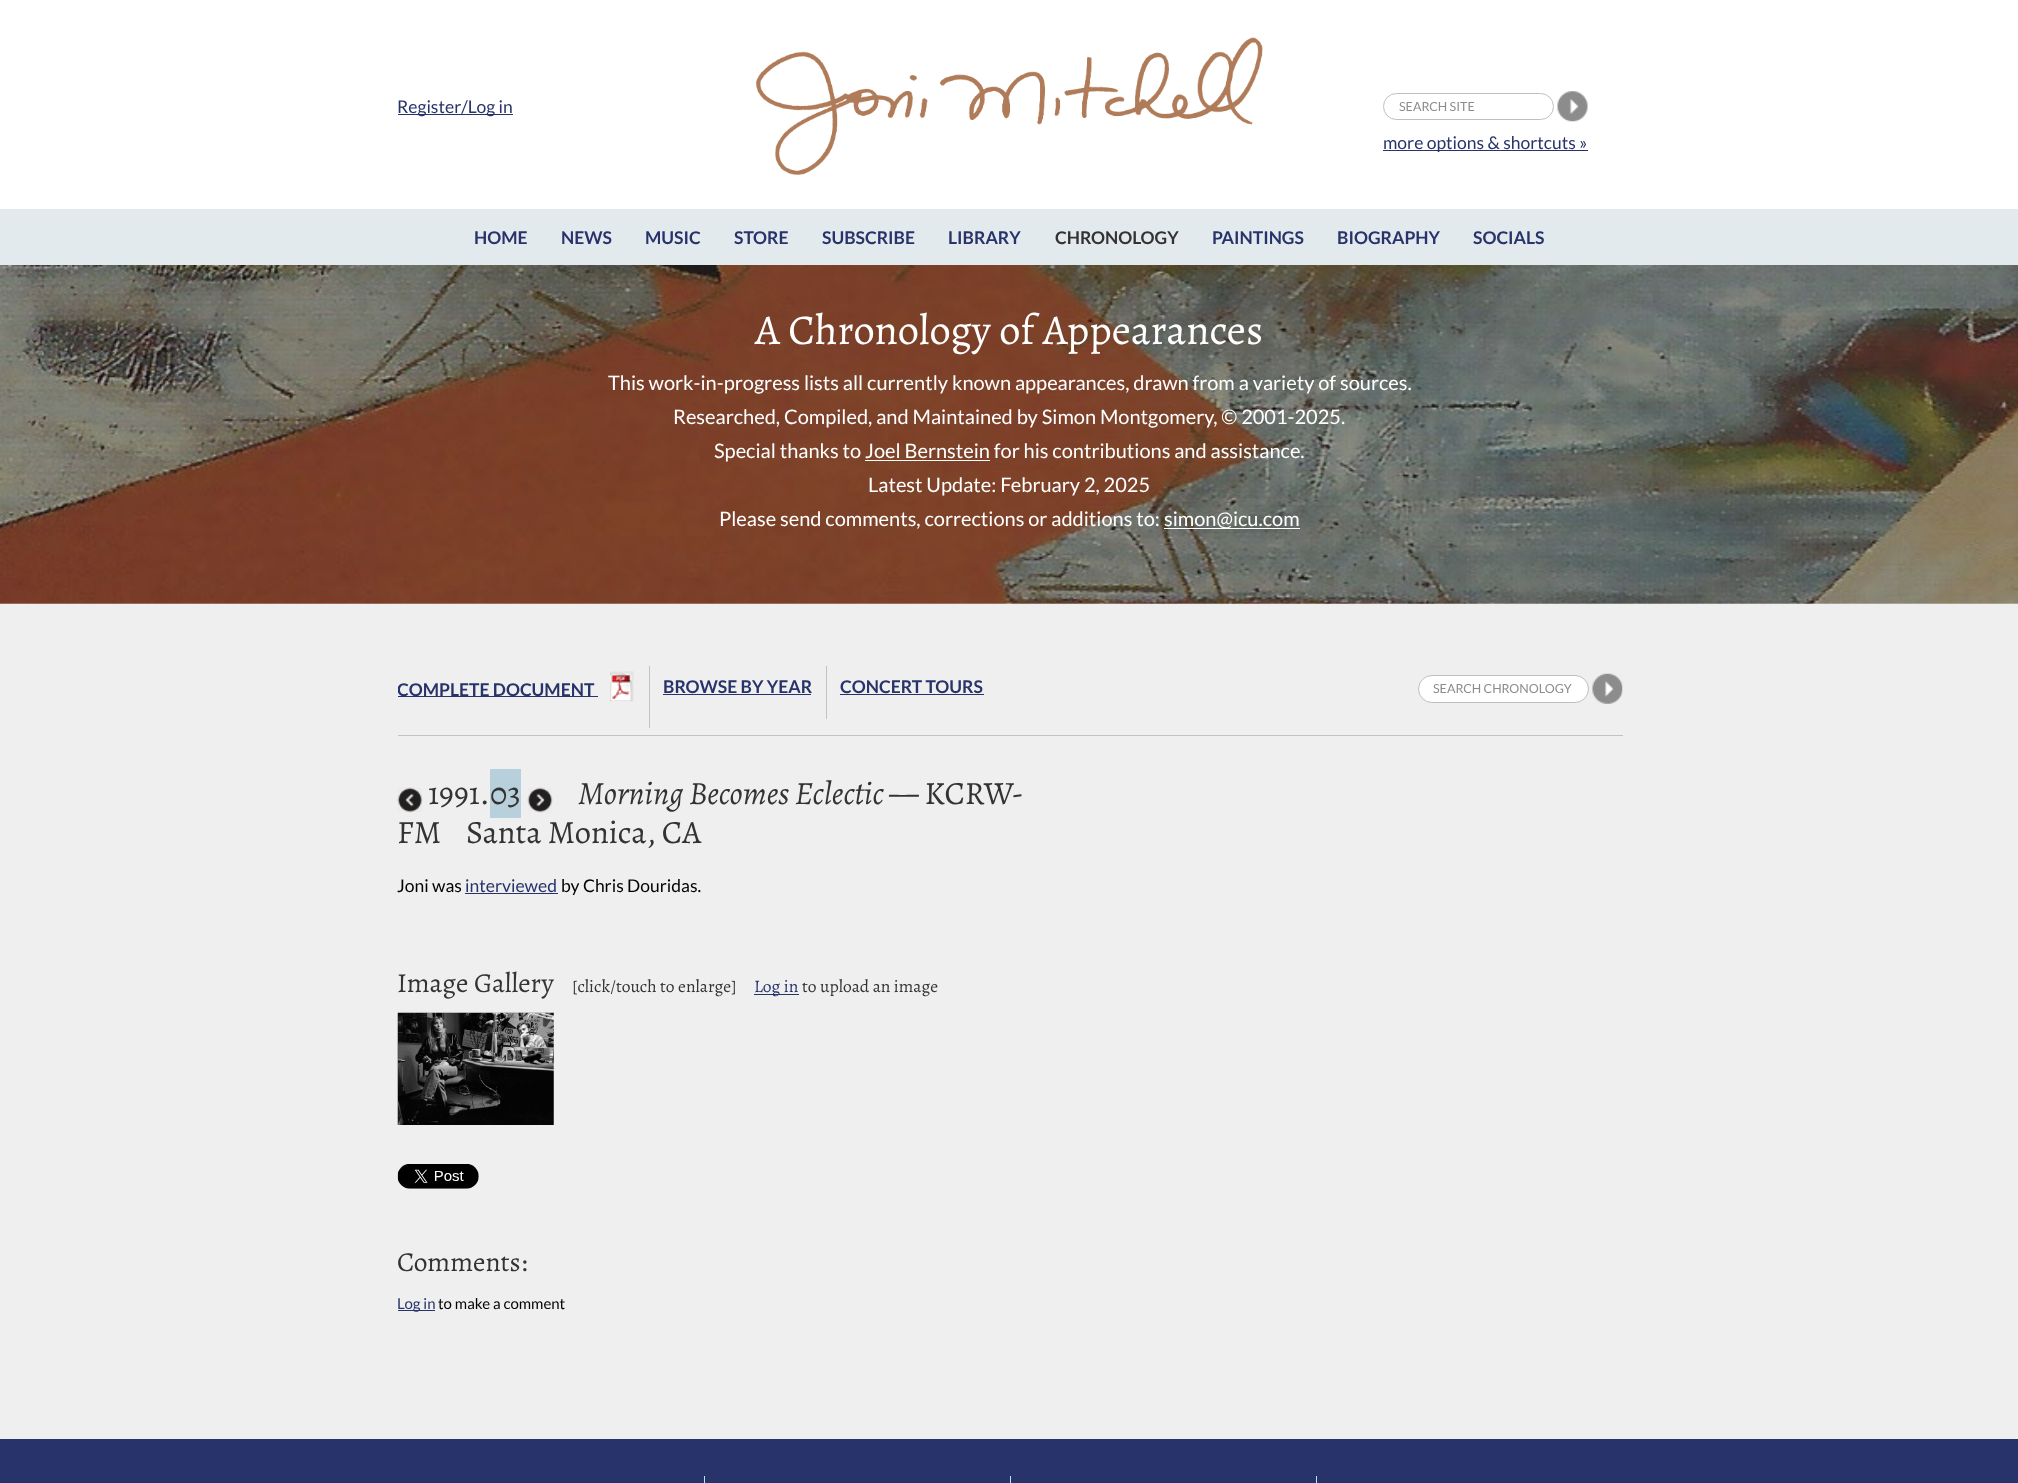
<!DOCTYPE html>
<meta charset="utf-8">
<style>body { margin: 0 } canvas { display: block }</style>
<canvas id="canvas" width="2018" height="1483"></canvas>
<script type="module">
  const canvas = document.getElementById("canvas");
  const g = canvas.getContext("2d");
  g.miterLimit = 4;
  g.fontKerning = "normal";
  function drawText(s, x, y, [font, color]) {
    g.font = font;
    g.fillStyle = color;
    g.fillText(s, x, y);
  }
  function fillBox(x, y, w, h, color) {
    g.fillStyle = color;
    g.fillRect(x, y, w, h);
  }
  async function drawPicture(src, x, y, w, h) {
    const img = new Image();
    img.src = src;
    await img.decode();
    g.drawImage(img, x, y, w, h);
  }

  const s1 = ["17.5px Lato", "#27336A"];
  const s2 = ["12.5px Lato", "#8C8C8C"];
  const s3 = ["bold 17.5px Lato", "#27336A"];
  const s4 = ["bold 17.5px Lato", "#333333"];
  const s5 = ["42.5px Alegreya", "#FFFFFF"];
  const s6 = ["20px Lato", "#FFFFFF"];
  const s7 = ["32.5px Alegreya", "#333333"];
  const s8 = ["italic 32.5px Alegreya", "#333333"];
  const s9 = ["17.5px Lato", "#000000"];
  const s10 = ["27.5px Alegreya", "#333333"];
  const s11 = ["17.5px Alegreya", "#333333"];
  const s12 = ["17.5px Alegreya", "#27336A"];
  const s13 = ["15px Lato", "#27336A"];
  const s14 = ["15px Lato", "#000000"];

  fillBox(0, 0, 2018, 1483, "#FFFFFF");
  await drawPicture("pic1.png", 756, 37, 507, 138);
  fillBox(398, 114, 115, 1, "#27336A");
  drawText("Register/Log in", 397, 113, s1);
  g.beginPath();
  g.roundRect(1383.5, 93.5, 170, 26, 13);
  g.strokeStyle = "#BFBFBF";
  g.stroke();
  drawText("SEARCH SITE", 1399, 111, s2);
  await drawPicture("pic2.png", 1557, 91, 31, 31);
  fillBox(1383, 150, 205, 1, "#27336A");
  drawText("more options & shortcuts »", 1383, 149, s1);
  fillBox(0, 209, 2018, 56, "#E3EAEE");
  drawText("HOME", 474, 244, s3);
  drawText("NEWS", 561, 244, s3);
  drawText("MUSIC", 645, 244, s3);
  drawText("STORE", 734, 244, s3);
  drawText("SUBSCRIBE", 822, 244, s3);
  drawText("LIBRARY", 948, 244, s3);
  drawText("CHRONOLOGY", 1055, 244, s4);
  drawText("PAINTINGS", 1212, 244, s3);
  drawText("BIOGRAPHY", 1337, 244, s3);
  drawText("SOCIALS", 1473, 244, s3);
  await drawPicture("pic3.png", 0, 265, 2018, 339);
  drawText("A Chronology of Appearances", 755, 344, s5);
  drawText("This work-in-progress lists all currently known appearances, drawn from a variety of sources.", 608, 390, s6);
  drawText("Researched, Compiled, and Maintained by Simon Montgomery, © 2001-2025.", 673, 424, s6);
  drawText("Special thanks to Joel Bernstein for his contributions and assistance.", 714, 458, s6);
  fillBox(865, 460, 125, 1, "#FFFFFF");
  drawText("Latest Update: February 2, 2025", 868, 492, s6);
  drawText("Please send comments, corrections or additions to:", 719, 526, s6);
  fillBox(1164, 528, 136, 1, "#FFFFFF");
  drawText("simon@icu.com", 1164, 526, s6);
  fillBox(0, 604, 2018, 835, "#EFEFEF");
  fillBox(398, 735, 1225, 1, "#C2C2C2");
  fillBox(649, 666, 1, 62, "#C2C2C2");
  fillBox(398, 696, 200, 1, "#27336A");
  g.save();
  g.beginPath();
  g.rect(398, 666, 1225, 69);
  g.clip();
  drawText("COMPLETE DOCUMENT", 397, 696, s3);
  g.restore();
  await drawPicture("pic4.png", 610, 671, 24, 31);
  fillBox(826, 666, 1, 53, "#C2C2C2");
  drawText("BROWSE BY YEAR", 663, 693, s3);
  fillBox(663, 694, 148, 1, "#27336A");
  drawText("CONCERT TOURS", 840, 693, s3);
  fillBox(840, 694, 144, 1, "#27336A");
  g.fillStyle = "#FFFFFF";
  g.beginPath();
  g.roundRect(1418.5, 675.5, 170, 27, 13.5);
  g.fill();
  g.stroke();
  drawText("SEARCH CHRONOLOGY", 1433, 693, s2);
  await drawPicture("pic5.png", 1592, 673, 31, 31);
  await drawPicture("pic6.png", 397, 787, 26, 26);
  drawText("1991.", 428, 804, s7);
  fillBox(490, 769, 31, 49, "#B8D0DC");
  drawText("03", 490, 804, s7);
  await drawPicture("pic7.png", 527, 787, 26, 26);
  drawText("Morning Becomes Eclectic", 578, 804, s8);
  drawText("— KCRW-", 889, 804, s7);
  drawText("FM", 397, 843, s7);
  drawText("Santa Monica, CA", 466, 843, s7);
  drawText("Joni was", 397, 892, s9);
  drawText("interviewed", 465, 892, s1);
  fillBox(465, 893, 93, 1, "#27336A");
  drawText("by Chris Douridas.", 561, 892, s9);
  drawText("Image Gallery", 397, 992, s10);
  drawText("[click/touch to enlarge]", 572, 992, s11);
  fillBox(754, 994, 45, 1, "#27336A");
  drawText("Log in", 754, 992, s12);
  drawText("to upload an image", 802, 992, s11);
  await drawPicture("pic8.png", 397, 1012, 157, 113);
  await drawPicture("pic9.png", 397, 1164, 82, 25);
  drawText("Comments:", 397, 1271, s10);
  fillBox(398, 1310, 37, 1, "#27336A");
  drawText("Log in", 397, 1309, s13);
  drawText("to make a comment", 438, 1309, s14);
  fillBox(0, 1439, 2018, 44, "#27336A");
  fillBox(704, 1476, 1, 7, "#B2E4FE");
  fillBox(1010, 1476, 1, 7, "#B2E4FE");
  fillBox(1316, 1476, 1, 7, "#B2E4FE");
</script>
